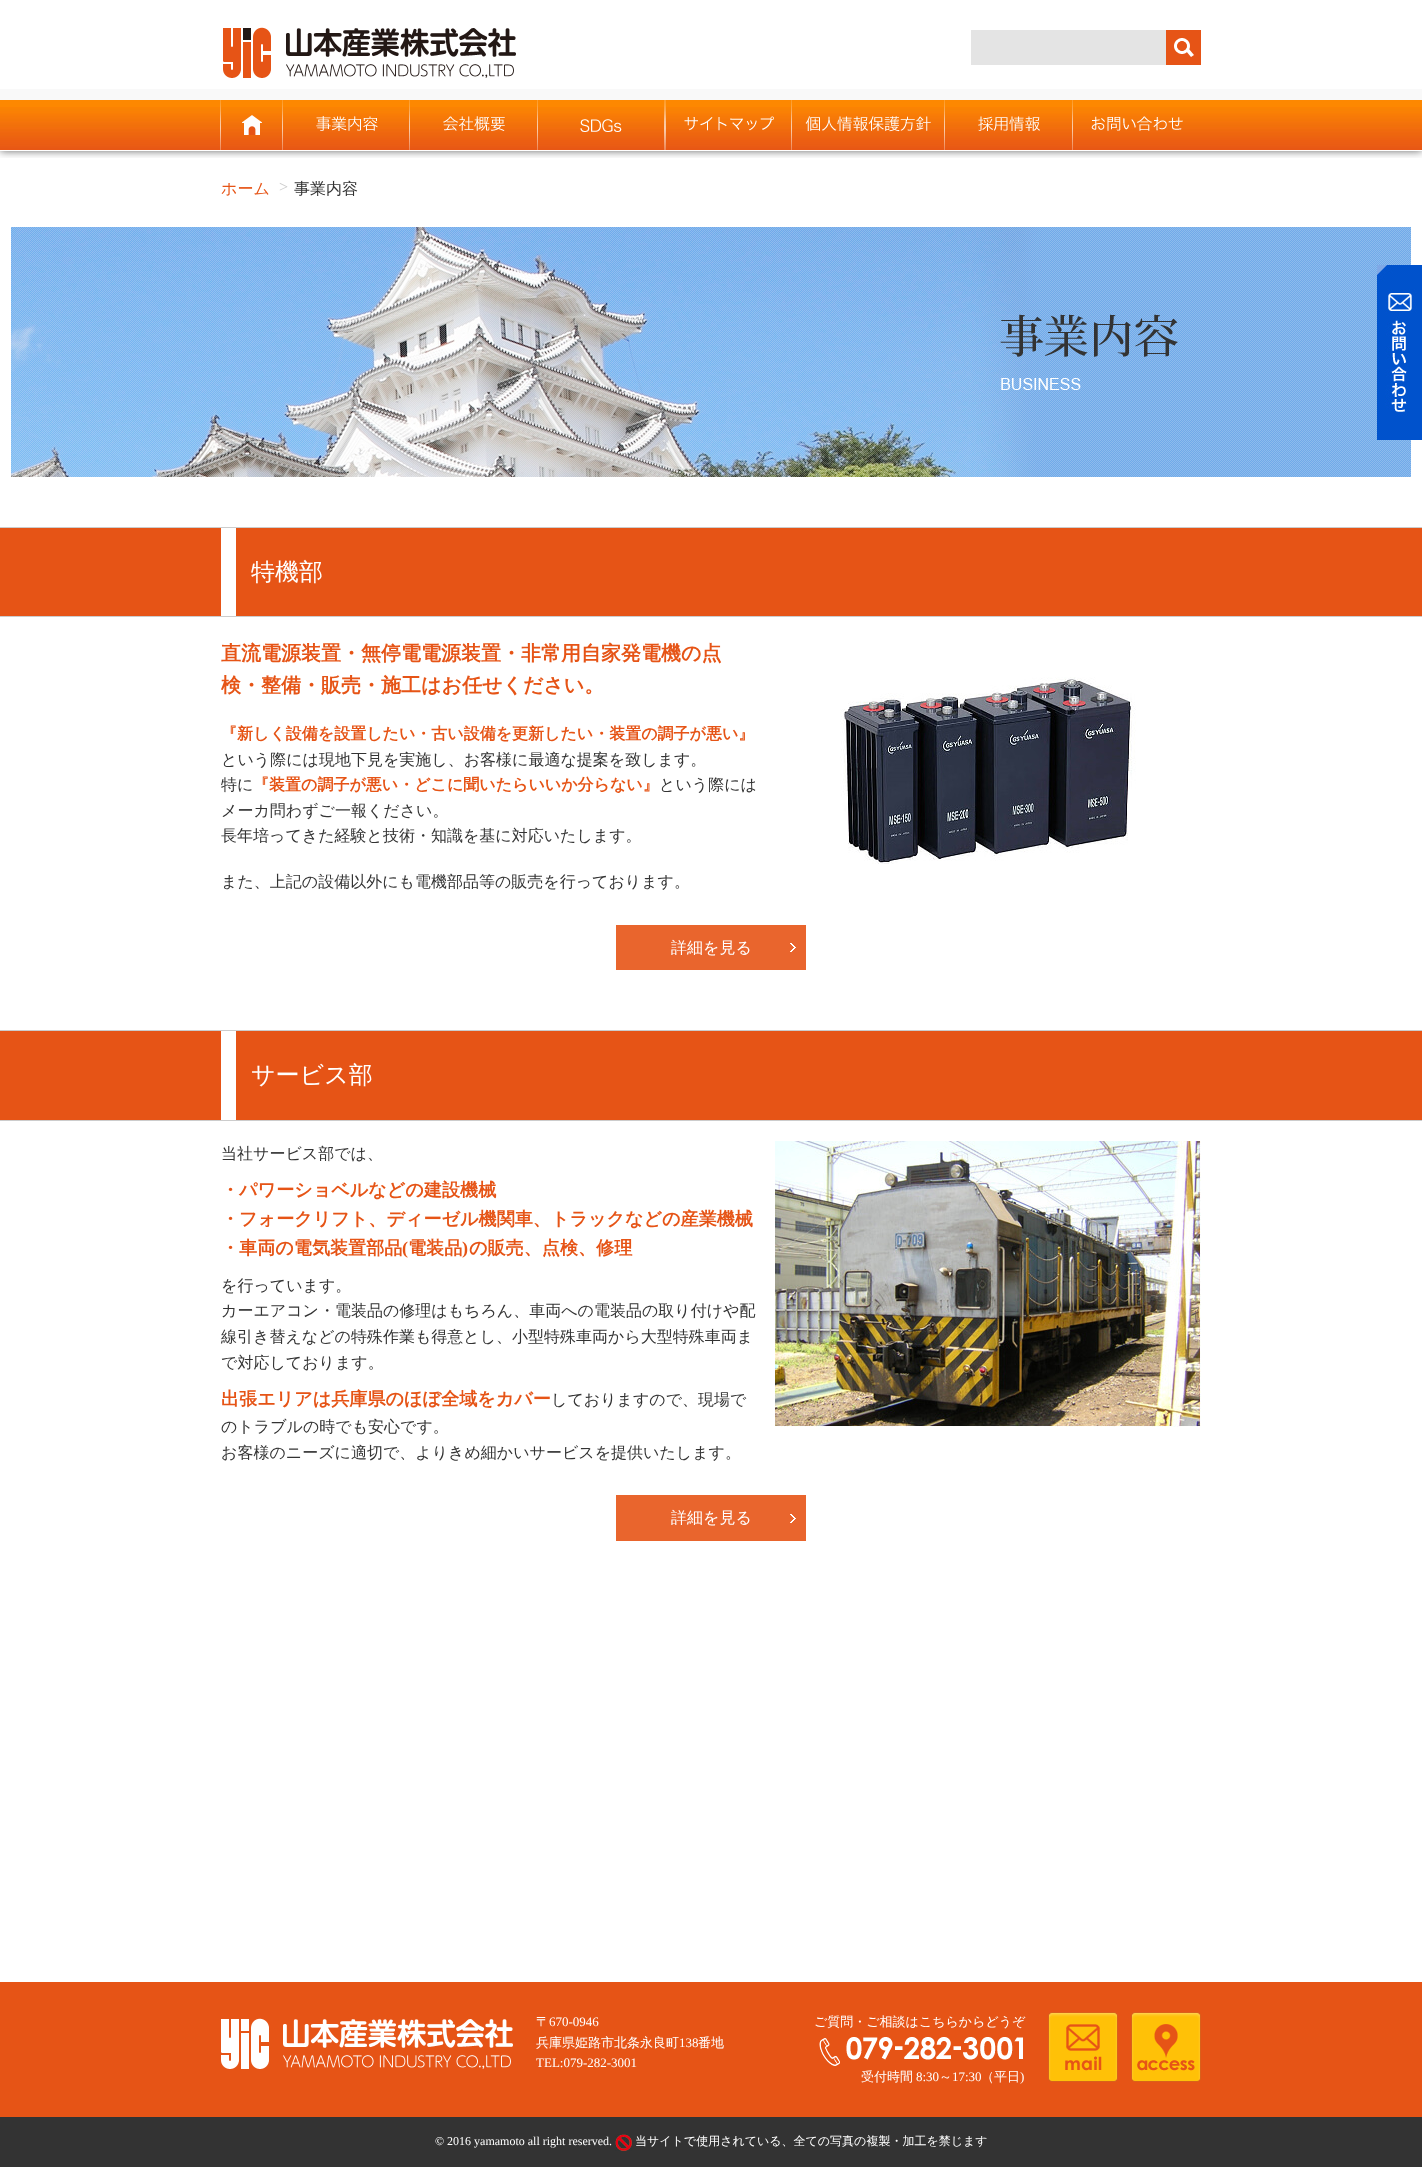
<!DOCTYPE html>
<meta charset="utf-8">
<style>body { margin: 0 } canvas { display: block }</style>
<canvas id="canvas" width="1422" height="2168"></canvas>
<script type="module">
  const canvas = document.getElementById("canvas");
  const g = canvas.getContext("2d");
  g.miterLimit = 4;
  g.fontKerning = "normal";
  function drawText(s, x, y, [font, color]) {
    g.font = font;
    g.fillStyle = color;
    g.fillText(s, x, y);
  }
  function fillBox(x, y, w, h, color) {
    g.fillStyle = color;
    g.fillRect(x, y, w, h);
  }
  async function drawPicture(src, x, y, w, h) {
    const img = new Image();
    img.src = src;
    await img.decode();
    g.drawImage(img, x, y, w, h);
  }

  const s1 = ["500 16px WenQuanYi Zen Hei", "#E65416"];
  const s2 = ["16px Liberation Serif", "#CCCCCC"];
  const s3 = ["500 16px WenQuanYi Zen Hei", "#333333"];
  const s4 = ["500 24px WenQuanYi Zen Hei", "#FFFFFF"];
  const s5 = ["bold 20px WenQuanYi Zen Hei", "#E65416"];
  const s6 = ["bold 16px WenQuanYi Zen Hei", "#E65416"];
  const s7 = ["500 16px WenQuanYi Zen Hei", "#FFFFFF"];
  const s8 = ["bold 18.1px WenQuanYi Zen Hei", "#E65416"];
  const s9 = ["bold 18.1px Liberation Serif", "#E65416"];
  const s10 = ["500 13px WenQuanYi Zen Hei", "#FFFFFF"];
  const s11 = ["13px Liberation Serif", "#FFFFFF"];
  const s12 = ["12px Liberation Serif", "#FFFFFF"];
  const s13 = ["500 12px WenQuanYi Zen Hei", "#FFFFFF"];

  fillBox(0, 0, 1422, 2168, "#FFFFFF");
  g.save();
  g.beginPath();
  g.rect(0, 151, 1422, 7);
  g.clip();
  g.fillStyle = "rgba(0, 0, 0, 0.6)";
  g.filter = "blur(4px)";
  g.beginPath();
  g.rect(0, 0, 1422, 151);
  g.fill();
  g.filter = "none";
  g.restore();
  fillBox(0, 89, 1422, 11, "#F9F9F9");
  await drawPicture("pic1.png", 223, 27, 293, 51);
  fillBox(971, 30, 195, 35, "#E4E4E4");
  fillBox(1166, 30, 35, 35, "#E65416");
  await drawPicture("pic2.png", 1174, 38, 20, 19);
  fillBox(0, 100, 1422, 7, "#FD8801");
  await drawPicture("pic3.png", 0, 107, 1422, 43);
  await drawPicture("pic4.png", 220, 100, 1, 50);
  await drawPicture("pic5.png", 242, 115, 20, 20);
  await drawPicture("pic4.png", 282, 100, 1, 50);
  await drawPicture("pic6.png", 316, 116, 62, 15);
  await drawPicture("pic4.png", 409, 100, 1, 50);
  await drawPicture("pic7.png", 443, 116, 62, 15);
  await drawPicture("pic4.png", 537, 100, 1, 50);
  await drawPicture("pic8.png", 580, 119, 42, 13);
  await drawPicture("pic4.png", 665, 100, 1, 50);
  await drawPicture("pic4.png", 664, 100, 1, 50);
  await drawPicture("pic9.png", 684, 116, 90, 15);
  await drawPicture("pic4.png", 791, 100, 1, 50);
  await drawPicture("pic10.png", 805, 116, 126, 16);
  await drawPicture("pic4.png", 944, 100, 1, 50);
  await drawPicture("pic11.png", 978, 116, 62, 15);
  await drawPicture("pic4.png", 1072, 100, 1, 50);
  await drawPicture("pic12.png", 1091, 116, 92, 15);
  drawText("ホーム", 221, 194, s1);
  drawText(">", 279, 192, s2);
  drawText("事業内容", 294, 194, s3);
  await drawPicture("pic13.png", 11, 227, 1400, 250);
  fillBox(0, 528, 1422, 88, "#E65416");
  fillBox(0, 527, 1422, 1, "#CCCCCC");
  fillBox(0, 616, 1422, 1, "#CCCCCC");
  fillBox(221, 528, 15, 88, "#FFFFFF");
  drawText("特機部", 251, 580, s4);
  drawText("直流電源装置・無停電電源装置・非常用自家発電機の点", 221, 660, s5);
  drawText("検・整備・販売・施工はお任せください。", 221, 692, s5);
  drawText("『新しく設備を設置したい・古い設備を更新したい・装置の調子が悪い』", 221, 739, s6);
  drawText("という際には現地下見を実施し、お客様に最適な提案を致します。", 221, 765, s3);
  drawText("特に", 221, 790, s3);
  drawText("『装置の調子が悪い・どこに聞いたらいいか分らない』", 253, 790, s6);
  drawText("という際には", 659, 790, s3);
  drawText("メーカ問わずご一報ください。", 221, 816, s3);
  drawText("長年培ってきた経験と技術・知識を基に対応いたします。", 221, 841, s3);
  drawText("また、上記の設備以外にも電機部品等の販売を行っております。", 221, 887, s3);
  await drawPicture("pic14.png", 840, 677, 296, 187);
  fillBox(616, 925, 190, 45, "#E9652D");
  await drawPicture("pic15.png", 790, 943, 6, 9);
  drawText("詳細を見る", 671, 953, s7);
  fillBox(0, 1031, 1422, 89, "#E65416");
  fillBox(0, 1030, 1422, 1, "#CCCCCC");
  fillBox(0, 1120, 1422, 1, "#CCCCCC");
  fillBox(221, 1031, 15, 89, "#FFFFFF");
  drawText("サービス部", 251, 1083, s4);
  drawText("当社サービス部では、", 221, 1159, s3);
  drawText("・パワーショベルなどの建設機械", 221, 1196, s8);
  drawText("・フォークリフト、ディーゼル機関車、トラックなどの産業機械", 221, 1225, s8);
  drawText("・車両の電気装置部品", 221, 1254, s8);
  drawText("(", 402, 1254, s9);
  drawText("電装品", 408, 1254, s8);
  drawText(")", 462, 1254, s9);
  drawText("の販売、点検、修理", 469, 1254, s8);
  drawText("を行っています。", 221, 1291, s3);
  drawText("カーエアコン・電装品の修理はもちろん、車両への電装品の取り付けや配", 221, 1316, s3);
  drawText("線引き替えなどの特殊作業も得意とし、小型特殊車両から大型特殊車両ま", 221, 1342, s3);
  drawText("で対応しております。", 221, 1368, s3);
  drawText("出張エリアは兵庫県のほぼ全域をカバー", 221, 1405, s8);
  drawText("しておりますので、現場で", 551, 1405, s3);
  drawText("のトラブルの時でも安心です。", 221, 1432, s3);
  drawText("お客様のニーズに適切で、よりきめ細かいサービスを提供いたします。", 221, 1458, s3);
  await drawPicture("pic16.png", 775, 1141, 426, 286);
  fillBox(616, 1495, 190, 46, "#E9652D");
  await drawPicture("pic15.png", 790, 1514, 6, 9);
  drawText("詳細を見る", 671, 1523, s7);
  fillBox(0, 1982, 1422, 135, "#E65416");
  await drawPicture("pic17.png", 221, 2018, 292, 51);
  drawText("〒", 536, 2026, s10);
  drawText("670-0946", 549, 2026, s11);
  drawText("兵庫県姫路市北条永良町", 536, 2047, s10);
  drawText("138", 679, 2047, s11);
  drawText("番地", 698, 2047, s10);
  drawText("TEL:079-282-3001", 536, 2067, s11);
  drawText("ご質問・ご相談はこちらからどうぞ", 814, 2026, s10);
  await drawPicture("pic18.png", 819, 2037, 204, 29);
  drawText("受付時間", 861, 2081, s10);
  drawText("8:30", 916, 2081, s11);
  drawText("～", 939, 2081, s10);
  drawText("17:30", 952, 2081, s11);
  drawText("（平日", 981, 2081, s10);
  drawText(")", 1020, 2081, s11);
  await drawPicture("pic19.png", 1048, 2012, 70, 70);
  await drawPicture("pic20.png", 1131, 2012, 70, 70);
  fillBox(0, 2117, 1422, 50, "#333333");
  drawText("© 2016 yamamoto all right reserved.", 435, 2145, s12);
  await drawPicture("pic21.png", 615, 2134, 17, 17);
  drawText("当サイトで使用されている、全ての写真の複製・加工を禁じます", 635, 2145, s13);
  await drawPicture("pic22.png", 1377, 265, 45, 175);
</script>
